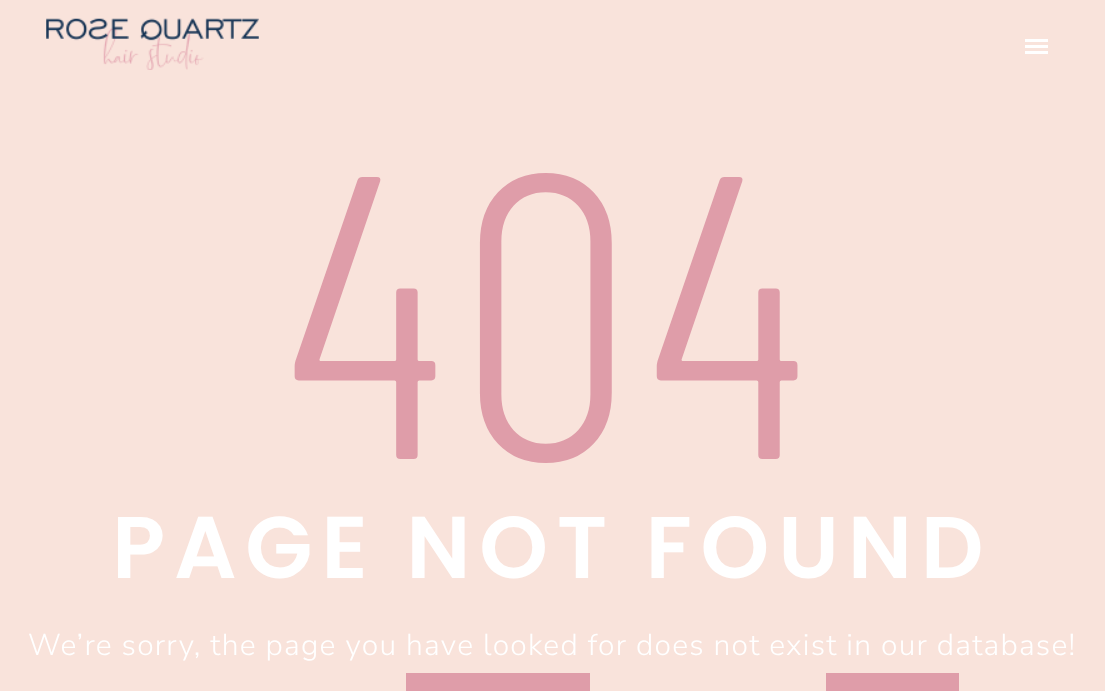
<!DOCTYPE html>
<meta charset="utf-8">
<style>body { margin: 0 } canvas { display: block }</style>
<canvas id="canvas" width="1105" height="691"></canvas>
<script type="module">
  const canvas = document.getElementById("canvas");
  const g = canvas.getContext("2d");
  g.miterLimit = 4;
  g.fontKerning = "normal";
  function drawText(s, x, y, [font, color]) {
    g.font = font;
    g.fillStyle = color;
    g.fillText(s, x, y);
  }
  function fillBox(x, y, w, h, color) {
    g.fillStyle = color;
    g.fillRect(x, y, w, h);
  }
  async function drawPicture(src, x, y, w, h) {
    const img = new Image();
    img.src = src;
    await img.decode();
    g.drawImage(img, x, y, w, h);
  }

  const s1 = ["300 403px Barlow Condensed", "#DF9DA9"];
  const s2 = ["600 87.5px Poppins", "#FFFFFF"];
  const s3 = ["300 30px Nunito Sans", "#FFFFFF"];

  fillBox(0, 0, 1105, 691, "#F9E3DB");
  await drawPicture("pic1.png", 46, 18, 213, 52);
  fillBox(1025, 39, 23, 3, "#FFFFFF");
  fillBox(1025, 45, 23, 3, "#FFFFFF");
  fillBox(1025, 51, 23, 3, "#FFFFFF");
  g.letterSpacing = "12px";
  drawText("404", 285, 459, s1);
  g.letterSpacing = "8.75px";
  drawText("PAGE NOT FOUND", 112, 578, s2);
  g.letterSpacing = "1.25px";
  drawText("We’re sorry, the page you have looked for does not exist in our database!", 28, 655, s3);
  fillBox(406, 673, 184, 18, "#DF9DA9");
  fillBox(826, 673, 133, 18, "#DF9DA9");
</script>
